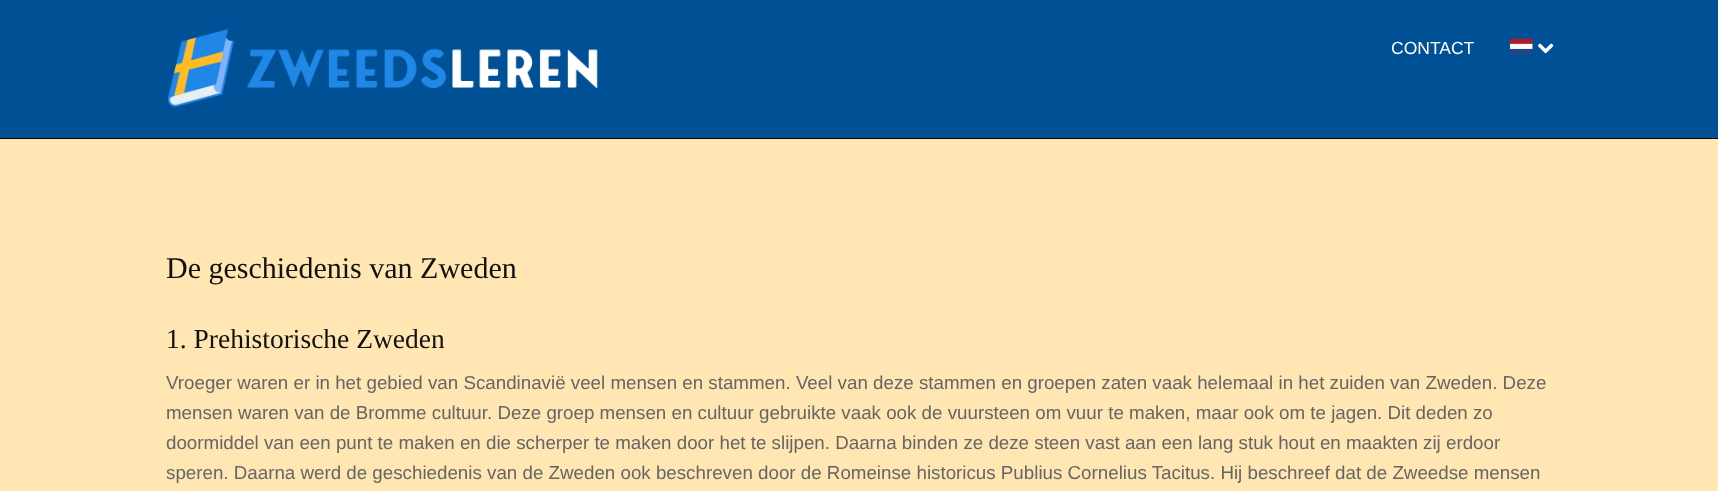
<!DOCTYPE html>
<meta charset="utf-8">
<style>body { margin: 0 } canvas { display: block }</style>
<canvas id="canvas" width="1718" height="491"></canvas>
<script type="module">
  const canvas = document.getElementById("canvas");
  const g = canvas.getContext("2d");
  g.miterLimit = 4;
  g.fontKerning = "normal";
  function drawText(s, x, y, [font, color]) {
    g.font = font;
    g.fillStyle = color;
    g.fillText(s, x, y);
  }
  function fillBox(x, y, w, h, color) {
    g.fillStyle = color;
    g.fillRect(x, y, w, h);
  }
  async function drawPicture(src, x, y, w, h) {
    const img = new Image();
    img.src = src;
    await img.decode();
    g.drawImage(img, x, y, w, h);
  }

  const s1 = ["17.5px Liberation Sans", "#FFFFFF"];
  const s2 = ["30px Liberation Serif", "#111111"];
  const s3 = ["27.5px Liberation Serif", "#111111"];
  const s4 = ["18.75px Liberation Sans", "#666666"];

  fillBox(0, 0, 1718, 491, "#FFE6B2");
  fillBox(0, 0, 1718, 138, "#005096");
  fillBox(0, 138, 1718, 1, "#000000");
  await drawPicture("pic1.png", 168, 28, 430, 80);
  drawText("CONTACT", 1391, 54, s1);
  await drawPicture("pic2.png", 1510, 38, 23, 17);
  await drawPicture("pic3.png", 1538, 43, 16, 11);
  drawText("De geschiedenis van Zweden", 166, 278, s2);
  drawText("1. Prehistorische Zweden", 166, 348, s3);
  drawText("Vroeger waren er in het gebied van Scandinavië veel mensen en stammen. Veel van deze stammen en groepen zaten vaak helemaal in het zuiden van Zweden. Deze", 166, 389, s4);
  drawText("mensen waren van de Bromme cultuur. Deze groep mensen en cultuur gebruikte vaak ook de vuursteen om vuur te maken, maar ook om te jagen. Dit deden zo", 166, 419, s4);
  drawText("doormiddel van een punt te maken en die scherper te maken door het te slijpen. Daarna binden ze deze steen vast aan een lang stuk hout en maakten zij erdoor", 166, 449, s4);
  drawText("speren. Daarna werd de geschiedenis van de Zweden ook beschreven door de Romeinse historicus Publius Cornelius Tacitus. Hij beschreef dat de Zweedse mensen", 166, 479, s4);
</script>
